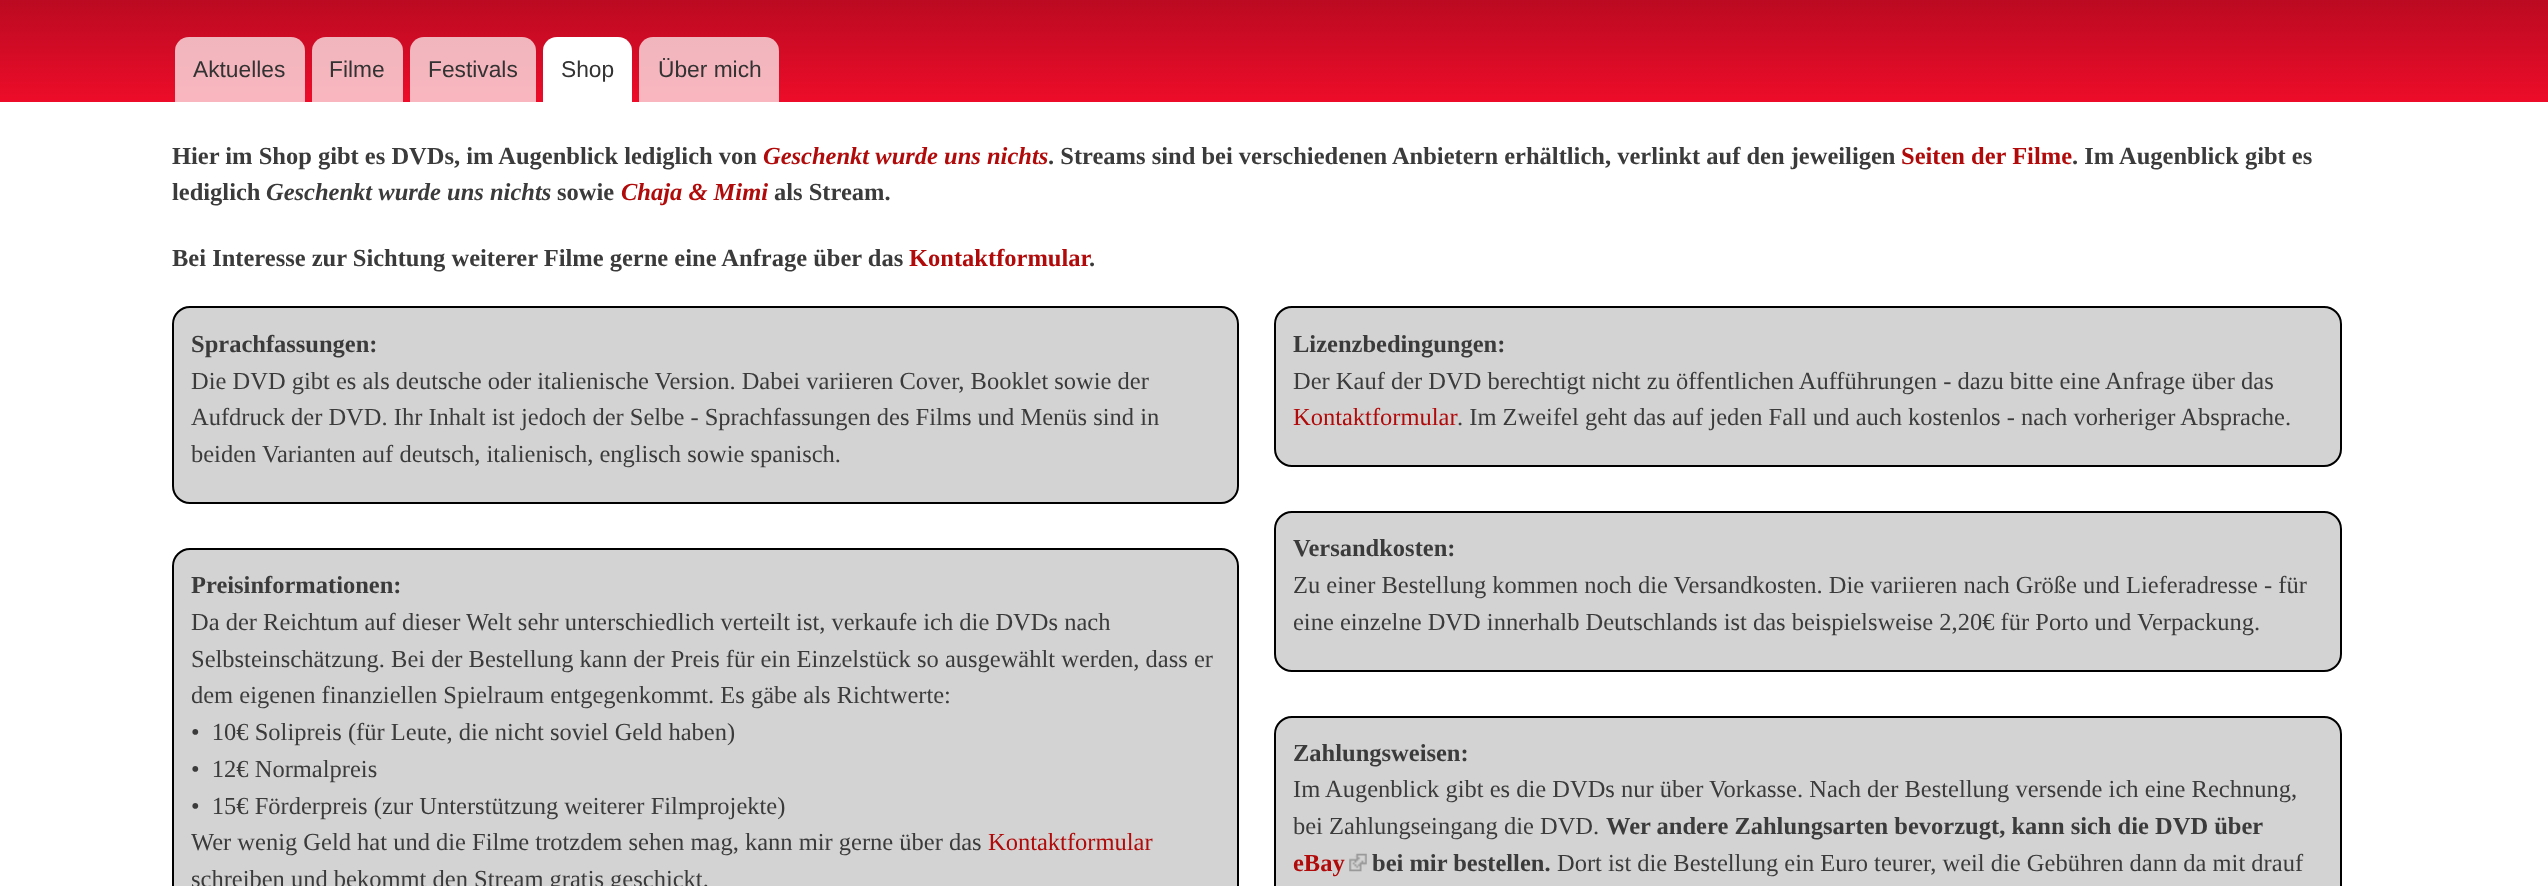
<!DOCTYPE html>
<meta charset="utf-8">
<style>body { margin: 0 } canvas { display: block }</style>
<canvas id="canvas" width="2548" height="886"></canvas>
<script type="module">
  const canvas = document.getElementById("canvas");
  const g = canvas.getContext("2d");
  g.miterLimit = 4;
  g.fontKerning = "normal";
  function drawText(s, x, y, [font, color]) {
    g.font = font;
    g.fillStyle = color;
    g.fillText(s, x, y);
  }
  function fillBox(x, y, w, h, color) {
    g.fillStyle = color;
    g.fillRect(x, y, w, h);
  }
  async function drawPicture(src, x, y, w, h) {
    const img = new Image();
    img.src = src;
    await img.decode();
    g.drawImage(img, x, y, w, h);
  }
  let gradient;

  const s1 = ["22.75px Liberation Sans", "#333333"];
  const s2 = ["bold 24.5px Liberation Serif", "#3B3B3B"];
  const s3 = ["italic bold 24.5px Liberation Serif", "#B10A0A"];
  const s4 = ["bold 24.5px Liberation Serif", "#B10A0A"];
  const s5 = ["italic bold 24.5px Liberation Serif", "#3B3B3B"];
  const s6 = ["24.5px Liberation Serif", "#3B3B3B"];
  const s7 = ["24.5px Liberation Serif", "#B10A0A"];

  fillBox(0, 0, 2548, 886, "#FFFFFF");
  gradient = g.createLinearGradient(1274, -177, 1274, 102);
  gradient.addColorStop(0, "#640714");
  gradient.addColorStop(1, "#ED0C29");
  g.fillStyle = gradient;
  g.fillRect(0, 0, 2548, 102);
  g.fillStyle = "rgba(255, 255, 255, 0.7)";
  g.beginPath();
  g.roundRect(175, 37, 130, 65, [14, 14, 0, 0]);
  g.fill();
  drawText("Aktuelles", 193, 77, s1);
  g.fillStyle = "rgba(255, 255, 255, 0.7)";
  g.beginPath();
  g.roundRect(312, 37, 91, 65, [14, 14, 0, 0]);
  g.fill();
  drawText("Filme", 329, 77, s1);
  g.fillStyle = "rgba(255, 255, 255, 0.7)";
  g.beginPath();
  g.roundRect(410, 37, 126, 65, [14, 14, 0, 0]);
  g.fill();
  drawText("Festivals", 428, 77, s1);
  g.fillStyle = "#FFFFFF";
  g.beginPath();
  g.roundRect(543, 37, 89, 65, [14, 14, 0, 0]);
  g.fill();
  drawText("Shop", 561, 77, s1);
  g.fillStyle = "rgba(255, 255, 255, 0.7)";
  g.beginPath();
  g.roundRect(639, 37, 140, 65, [14, 14, 0, 0]);
  g.fill();
  drawText("Über mich", 658, 77, s1);
  drawText("Hier im Shop gibt es DVDs, im Augenblick lediglich von", 172, 164, s2);
  drawText("Geschenkt wurde uns nichts", 763, 164, s3);
  drawText(". Streams sind bei verschiedenen Anbietern erhältlich, verlinkt auf den jeweiligen", 1048, 164, s2);
  drawText("Seiten der Filme", 1901, 164, s4);
  drawText(". Im Augenblick gibt es", 2072, 164, s2);
  drawText("lediglich", 172, 200, s2);
  drawText("Geschenkt wurde uns nichts", 266, 200, s5);
  drawText("sowie", 557, 200, s2);
  drawText("Chaja & Mimi", 621, 200, s3);
  drawText("als Stream.", 774, 200, s2);
  drawText("Bei Interesse zur Sichtung weiterer Filme gerne eine Anfrage über das", 172, 266, s2);
  drawText("Kontaktformular", 909, 266, s4);
  drawText(".", 1089, 266, s2);
  g.fillStyle = "#D3D3D3";
  g.beginPath();
  g.roundRect(173, 307, 1065, 196, 17);
  g.fill();
  g.strokeStyle = "#000000";
  g.lineWidth = 2;
  g.stroke();
  drawText("Sprachfassungen:", 191, 352, s2);
  drawText("Die DVD gibt es als deutsche oder italienische Version. Dabei variieren Cover, Booklet sowie der", 191, 389, s6);
  drawText("Aufdruck der DVD. Ihr Inhalt ist jedoch der Selbe - Sprachfassungen des Films und Menüs sind in", 191, 425, s6);
  drawText("beiden Varianten auf deutsch, italienisch, englisch sowie spanisch.", 191, 462, s6);
  g.fillStyle = "#D3D3D3";
  g.beginPath();
  g.roundRect(173, 549, 1065, 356, 17);
  g.fill();
  g.stroke();
  drawText("Preisinformationen:", 191, 593, s2);
  drawText("Da der Reichtum auf dieser Welt sehr unterschiedlich verteilt ist, verkaufe ich die DVDs nach", 191, 630, s6);
  drawText("Selbsteinschätzung. Bei der Bestellung kann der Preis für ein Einzelstück so ausgewählt werden, dass er", 191, 667, s6);
  drawText("dem eigenen finanziellen Spielraum entgegenkommt. Es gäbe als Richtwerte:", 191, 703, s6);
  drawText("•  10€ Solipreis (für Leute, die nicht soviel Geld haben)", 191, 740, s6);
  drawText("•  12€ Normalpreis", 191, 777, s6);
  drawText("•  15€ Förderpreis (zur Unterstützung weiterer Filmprojekte)", 191, 814, s6);
  drawText("Wer wenig Geld hat und die Filme trotzdem sehen mag, kann mir gerne über das", 191, 850, s6);
  drawText("Kontaktformular", 988, 850, s7);
  drawText("schreiben und bekommt den Stream gratis geschickt.", 191, 887, s6);
  g.fillStyle = "#D3D3D3";
  g.beginPath();
  g.roundRect(1275, 307, 1066, 159, 17);
  g.fill();
  g.stroke();
  drawText("Lizenzbedingungen:", 1293, 352, s2);
  drawText("Der Kauf der DVD berechtigt nicht zu öffentlichen Aufführungen - dazu bitte eine Anfrage über das", 1293, 389, s6);
  drawText("Kontaktformular", 1293, 425, s7);
  drawText(". Im Zweifel geht das auf jeden Fall und auch kostenlos - nach vorheriger Absprache.", 1457, 425, s6);
  g.fillStyle = "#D3D3D3";
  g.beginPath();
  g.roundRect(1275, 512, 1066, 159, 17);
  g.fill();
  g.stroke();
  drawText("Versandkosten:", 1293, 556, s2);
  drawText("Zu einer Bestellung kommen noch die Versandkosten. Die variieren nach Größe und Lieferadresse - für", 1293, 593, s6);
  drawText("eine einzelne DVD innerhalb Deutschlands ist das beispielsweise 2,20€ für Porto und Verpackung.", 1293, 630, s6);
  g.fillStyle = "#D3D3D3";
  g.beginPath();
  g.roundRect(1275, 717, 1066, 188, 17);
  g.fill();
  g.stroke();
  drawText("Zahlungsweisen:", 1293, 761, s2);
  drawText("Im Augenblick gibt es die DVDs nur über Vorkasse. Nach der Bestellung versende ich eine Rechnung,", 1293, 797, s6);
  drawText("bei Zahlungseingang die DVD.", 1293, 834, s6);
  drawText("Wer andere Zahlungsarten bevorzugt, kann sich die DVD über", 1606, 834, s2);
  drawText("eBay", 1293, 871, s4);
  await drawPicture("pic1.png", 1349, 853, 18, 19);
  drawText("bei mir bestellen.", 1372, 871, s2);
  drawText("Dort ist die Bestellung ein Euro teurer, weil die Gebühren dann da mit drauf", 1557, 871, s6);
</script>
